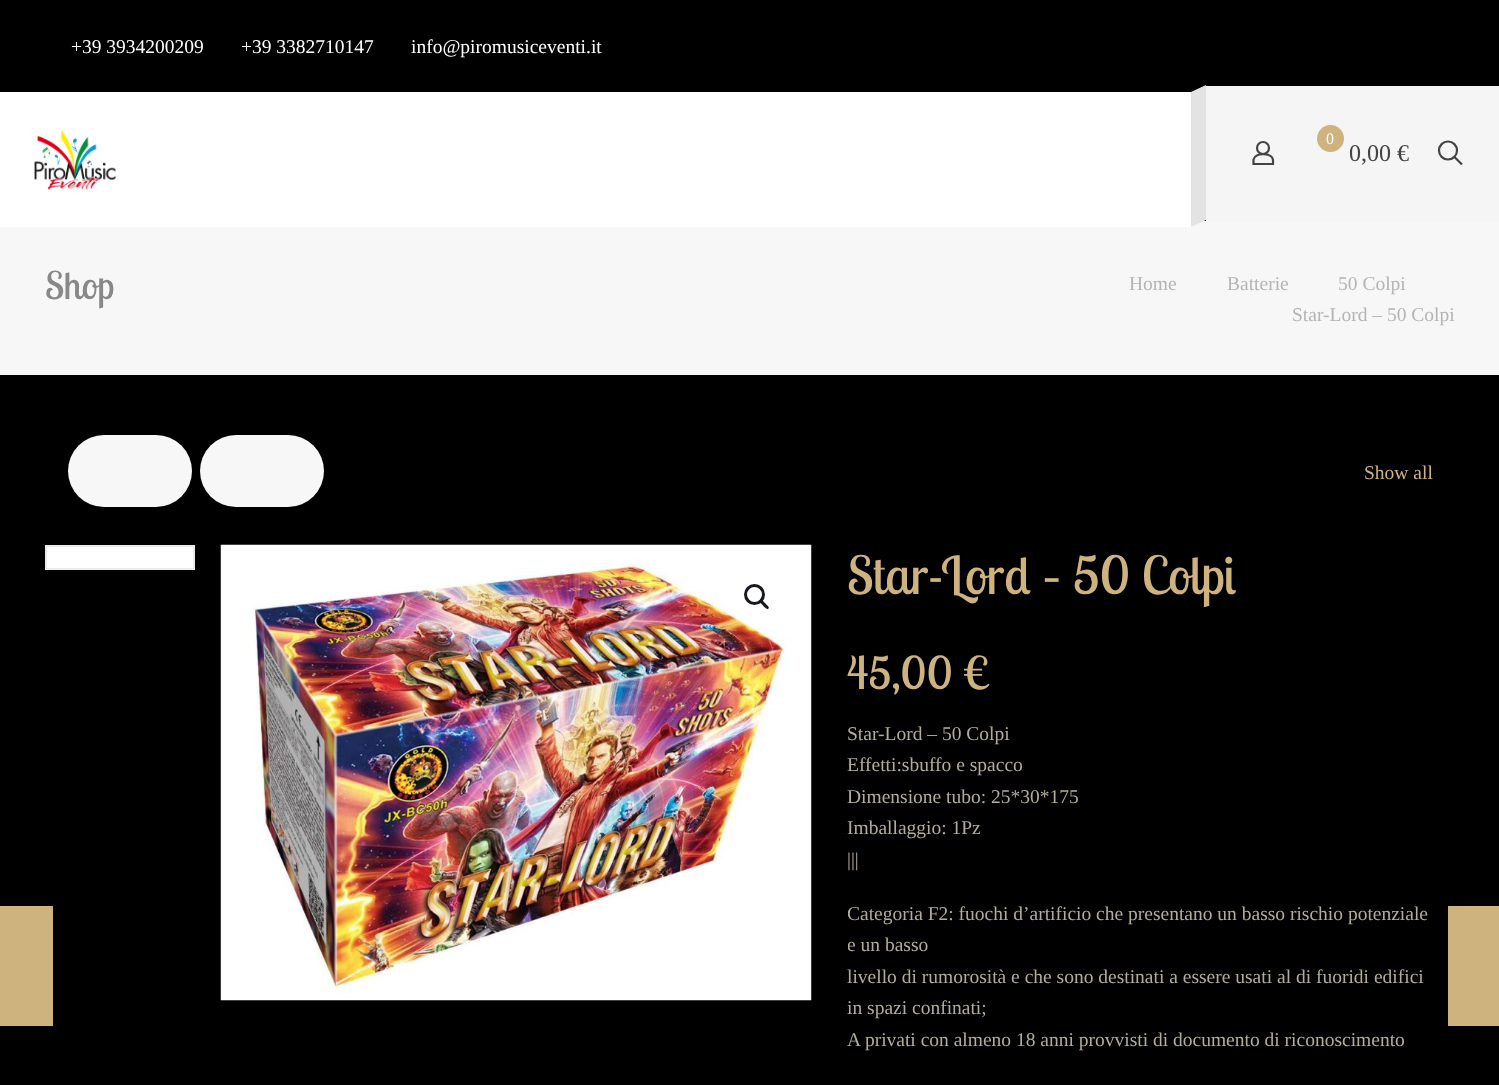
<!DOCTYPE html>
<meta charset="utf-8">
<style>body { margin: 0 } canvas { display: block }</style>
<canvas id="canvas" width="1499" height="1085"></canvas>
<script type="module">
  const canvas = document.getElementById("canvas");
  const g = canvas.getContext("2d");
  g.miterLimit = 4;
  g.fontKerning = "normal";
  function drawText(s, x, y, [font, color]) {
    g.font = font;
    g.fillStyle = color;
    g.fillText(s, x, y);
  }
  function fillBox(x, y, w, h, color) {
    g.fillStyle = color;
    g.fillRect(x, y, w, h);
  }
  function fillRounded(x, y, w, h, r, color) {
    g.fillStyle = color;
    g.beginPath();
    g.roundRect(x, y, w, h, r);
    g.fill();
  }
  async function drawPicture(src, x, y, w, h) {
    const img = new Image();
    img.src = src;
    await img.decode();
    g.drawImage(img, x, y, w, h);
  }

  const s1 = ["19.5px Liberation Serif", "#FFFFFF"];
  const s2 = ["16px Liberation Serif", "#FFFFFF"];
  const s3 = ["24px Liberation Serif", "#444444"];
  const s4 = ["38px Lobster Two", "#888888"];
  const s5 = ["19.5px Liberation Serif", "#B4B4B4"];
  const s6 = ["19.5px Liberation Serif", "#CFB37F"];
  const s7 = ["52.5px Lobster Two", "#CFB37F"];
  const s8 = ["45px Lobster Two", "#CFB37F"];
  const s9 = ["19.5px Liberation Serif", "#B2AC9C"];

  fillBox(0, 0, 1499, 1085, "#000000");
  fillBox(0, 906, 53, 120, "#CFB37F");
  drawText("+39 3934200209", 71, 53, s1);
  drawText("+39 3382710147", 241, 53, s1);
  drawText("info@piromusiceventi.it", 411, 53, s1);
  fillBox(0, 221, 1499, 154, "#F7F7F7");
  fillBox(0, 92, 1191, 135, "#FFFFFF");
  await drawPicture("pic1.png", 34, 130, 82, 60);
  fillBox(1206, 86, 293, 135, "#F5F5F5");
  g.fillStyle = "#E3E3E3";
  g.beginPath();
  g.moveTo(1191, 92);
  g.lineTo(1206, 85);
  g.lineTo(1206, 220);
  g.lineTo(1191, 227);
  g.closePath();
  g.fill();
  g.beginPath();
  g.arc(1263, 148, 6, 0, Math.PI * 2);
  g.strokeStyle = "#444444";
  g.lineWidth = 2.2;
  g.stroke();
  g.beginPath();
  g.moveTo(1273, 160.5);
  g.lineTo(1273, 164);
  g.lineTo(1253.5, 164);
  g.lineTo(1253.5, 159.5);
  g.bezierCurveTo(1255.5, 152, 1273, 152.5, 1273, 160.5);
  g.closePath();
  g.stroke();
  g.fillStyle = "#CFB37F";
  g.beginPath();
  g.arc(1330.5, 138.5, 13.5, 0, Math.PI * 2);
  g.fill();
  drawText("0", 1326, 144, s2);
  drawText("0,00 €", 1349, 161, s3);
  g.beginPath();
  g.arc(1448, 150.5, 9, 0, Math.PI * 2);
  g.stroke();
  g.beginPath();
  g.moveTo(1454.5, 157);
  g.lineTo(1462, 164.5);
  g.stroke();
  drawText("Shop", 45, 299, s4);
  drawText("Home", 1129, 290, s5);
  drawText("Batterie", 1227, 290, s5);
  drawText("50 Colpi", 1338, 290, s5);
  drawText("Star-Lord – 50 Colpi", 1292, 321, s5);
  fillRounded(68, 435, 124, 72, 36, "#F7F7F7");
  fillRounded(200, 435, 124, 72, 36, "#F7F7F7");
  drawText("Show all", 1364, 479, s6);
  g.fillStyle = "#FFFFFF";
  g.beginPath();
  g.rect(46, 546, 148, 23);
  g.fill();
  g.strokeStyle = "#EBEBEB";
  g.lineWidth = 2;
  g.stroke();
  await drawPicture("pic2.png", 220, 544, 592, 457);
  g.beginPath();
  g.arc(759, 597, 30, 0, Math.PI * 2);
  g.fill();
  g.beginPath();
  g.arc(754.5, 594.5, 9, 0, Math.PI * 2);
  g.strokeStyle = "#161922";
  g.lineWidth = 3;
  g.stroke();
  g.fillStyle = "#161922";
  g.beginPath();
  g.moveTo(760, 600.5);
  g.bezierCurveTo(761.5, 598.5, 764.5, 602.5, 765.5, 603.5);
  g.bezierCurveTo(766, 604.5, 770, 607, 768.5, 608.5);
  g.bezierCurveTo(767, 610.5, 764, 606.5, 763, 605.5);
  g.bezierCurveTo(762.5, 604.5, 758.5, 602, 760, 600.5);
  g.closePath();
  g.fill();
  drawText("Star-Lord – 50 Colpi", 847, 594, s7);
  drawText("45,00 €", 847, 689, s8);
  drawText("Star-Lord – 50 Colpi", 847, 740, s9);
  drawText("Effetti:sbuffo e spacco", 847, 771, s9);
  drawText("Dimensione tubo: 25*30*175", 847, 803, s9);
  drawText("Imballaggio: 1Pz", 847, 834, s9);
  drawText("|||", 847, 866, s9);
  g.save();
  g.beginPath();
  g.rect(848, 717, 589, 360);
  g.clip();
  drawText("Categoria F2: fuochi d’artificio che presentano un basso rischio potenziale", 847, 920, s9);
  drawText("e un basso", 847, 951, s9);
  g.restore();
  drawText("livello di rumorosità e che sono destinati a essere usati al di fuoridi edifici", 847, 983, s9);
  drawText("in spazi confinati;", 847, 1014, s9);
  drawText("A privati con almeno 18 anni provvisti di documento di riconoscimento", 847, 1046, s9);
  fillBox(1448, 906, 51, 120, "#CFB37F");
</script>
